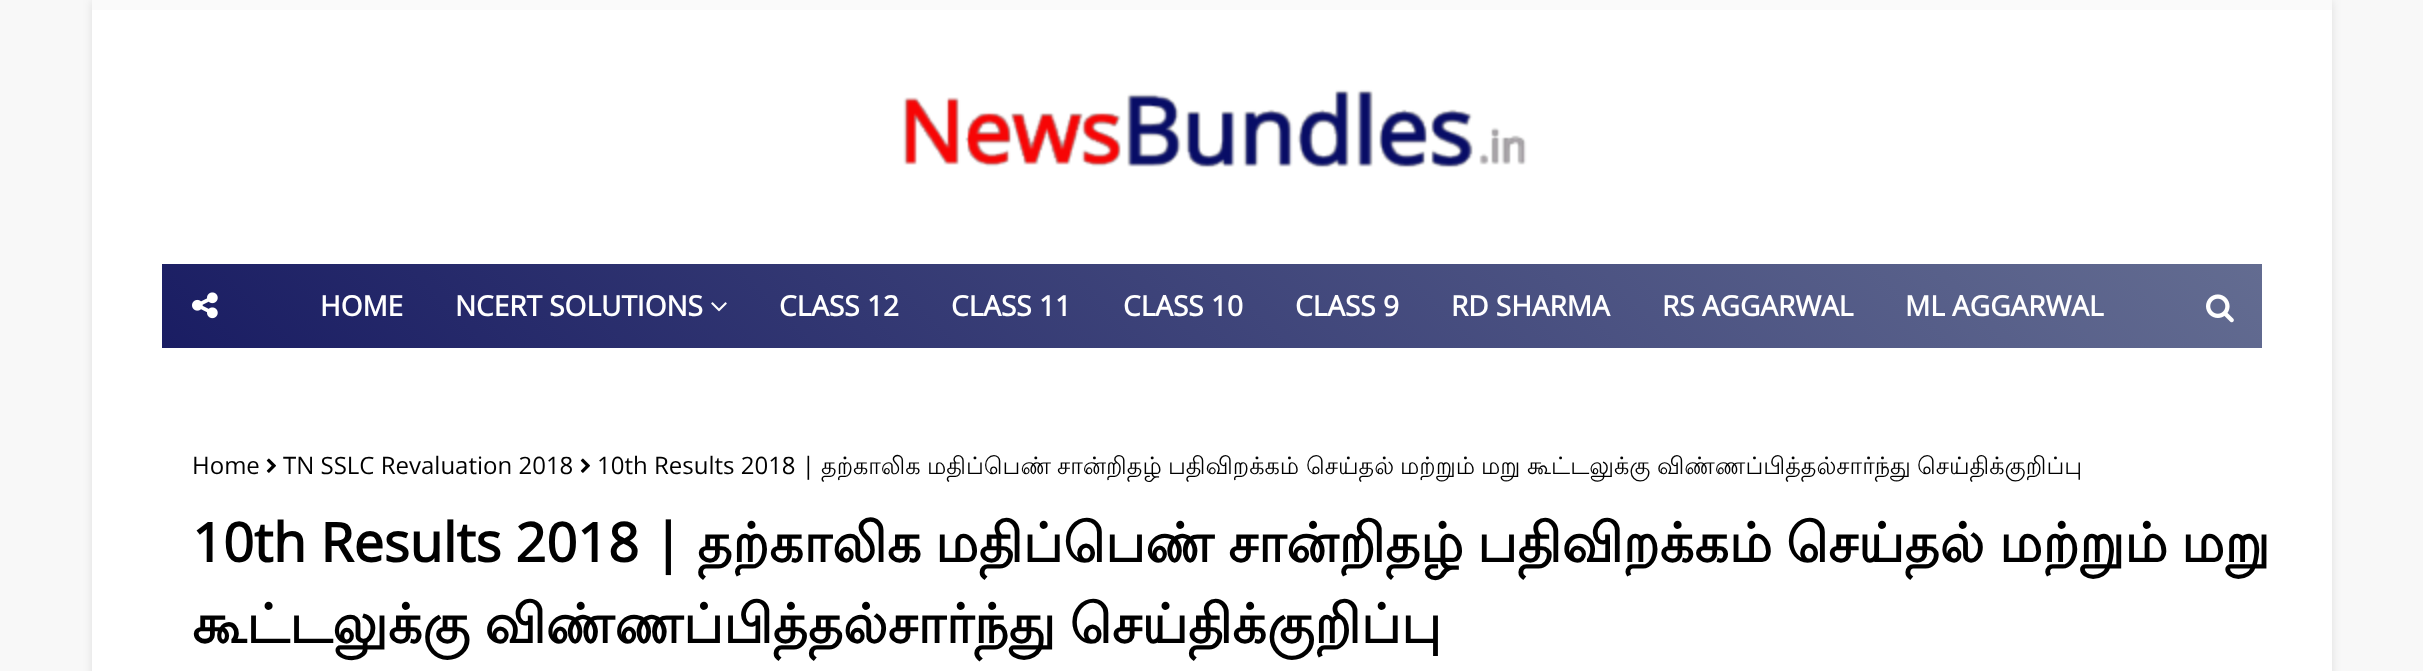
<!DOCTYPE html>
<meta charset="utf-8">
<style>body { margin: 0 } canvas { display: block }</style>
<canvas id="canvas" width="2423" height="671"></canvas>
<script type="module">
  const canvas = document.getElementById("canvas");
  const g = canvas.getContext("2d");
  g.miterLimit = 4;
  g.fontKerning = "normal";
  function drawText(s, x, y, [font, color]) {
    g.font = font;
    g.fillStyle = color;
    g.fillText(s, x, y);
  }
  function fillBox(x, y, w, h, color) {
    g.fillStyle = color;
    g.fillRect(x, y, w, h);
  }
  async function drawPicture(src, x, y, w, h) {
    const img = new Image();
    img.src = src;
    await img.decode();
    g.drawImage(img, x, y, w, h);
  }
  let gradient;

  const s1 = ["bold 28px Open Sans", "#FFFFFF"];
  const s2 = ["24px Open Sans", "#000000"];
  const s3 = ["24px Lohit Tamil", "#000000"];
  const s4 = ["bold 54px Open Sans", "#000000"];
  const s5 = ["bold 54px Lohit Tamil", "#000000"];

  fillBox(0, 0, 2423, 671, "#F8F8F8");
  g.fillStyle = "rgba(0, 0, 0, 0.1)";
  g.filter = "blur(5px)";
  g.beginPath();
  g.rect(92, 0, 2240, 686);
  g.fill();
  g.filter = "none";
  fillBox(92, 10, 2240, 661, "#FFFFFF");
  fillBox(92, 0, 2240, 10, "#FAFAFA");
  await drawPicture("pic1.png", 903, 89, 624, 79);
  gradient = g.createLinearGradient(666, 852, 1758, -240);
  gradient.addColorStop(0, "#1A1D63");
  gradient.addColorStop(1, "#636C91");
  g.fillStyle = gradient;
  g.fillRect(162, 264, 2100, 84);
  await drawPicture("pic2.png", 192, 292, 26, 27);
  drawText("HOME", 320, 316, s1);
  drawText("NCERT SOLUTIONS", 455, 316, s1);
  await drawPicture("pic3.png", 711, 302, 16, 10);
  drawText("CLASS 12", 779, 316, s1);
  drawText("CLASS 11", 951, 316, s1);
  drawText("CLASS 10", 1123, 316, s1);
  drawText("CLASS 9", 1295, 316, s1);
  drawText("RD SHARMA", 1451, 316, s1);
  drawText("RS AGGARWAL", 1662, 316, s1);
  drawText("ML AGGARWAL", 1905, 316, s1);
  await drawPicture("pic4.png", 2206, 294, 28, 29);
  drawText("Home", 192, 474, s2);
  await drawPicture("pic5.png", 266, 458, 10, 15);
  drawText("TN SSLC Revaluation 2018", 283, 474, s2);
  await drawPicture("pic5.png", 580, 458, 10, 15);
  drawText("10th Results 2018 |", 597, 474, s2);
  drawText("தற்காலிக", 821, 474, s3);
  drawText("மதிப்பெண்", 927, 474, s3);
  drawText("சான்றிதழ்", 1057, 474, s3);
  drawText("பதிவிறக்கம்", 1168, 474, s3);
  drawText("செய்தல்", 1306, 474, s3);
  drawText("மற்றும்", 1400, 474, s3);
  drawText("மறு", 1481, 474, s3);
  drawText("கூட்டலுக்கு", 1527, 474, s3);
  drawText("விண்ணப்பித்தல்சார்ந்து", 1657, 474, s3);
  drawText("செய்திக்குறிப்பு", 1917, 474, s3);
  drawText("10th Results 2018 |", 192, 562, s4);
  drawText("தற்காலிக", 697, 562, s5);
  drawText("மதிப்பெண்", 935, 562, s5);
  drawText("சான்றிதழ்", 1228, 562, s5);
  drawText("பதிவிறக்கம்", 1477, 562, s5);
  drawText("செய்தல்", 1786, 562, s5);
  drawText("மற்றும்", 1999, 562, s5);
  drawText("மறு", 2181, 562, s5);
  g.wordSpacing = "-2px";
  drawText("கூட்டலுக்கு விண்ணப்பித்தல்சார்ந்து செய்திக்குறிப்பு", 192, 643, s5);
</script>
